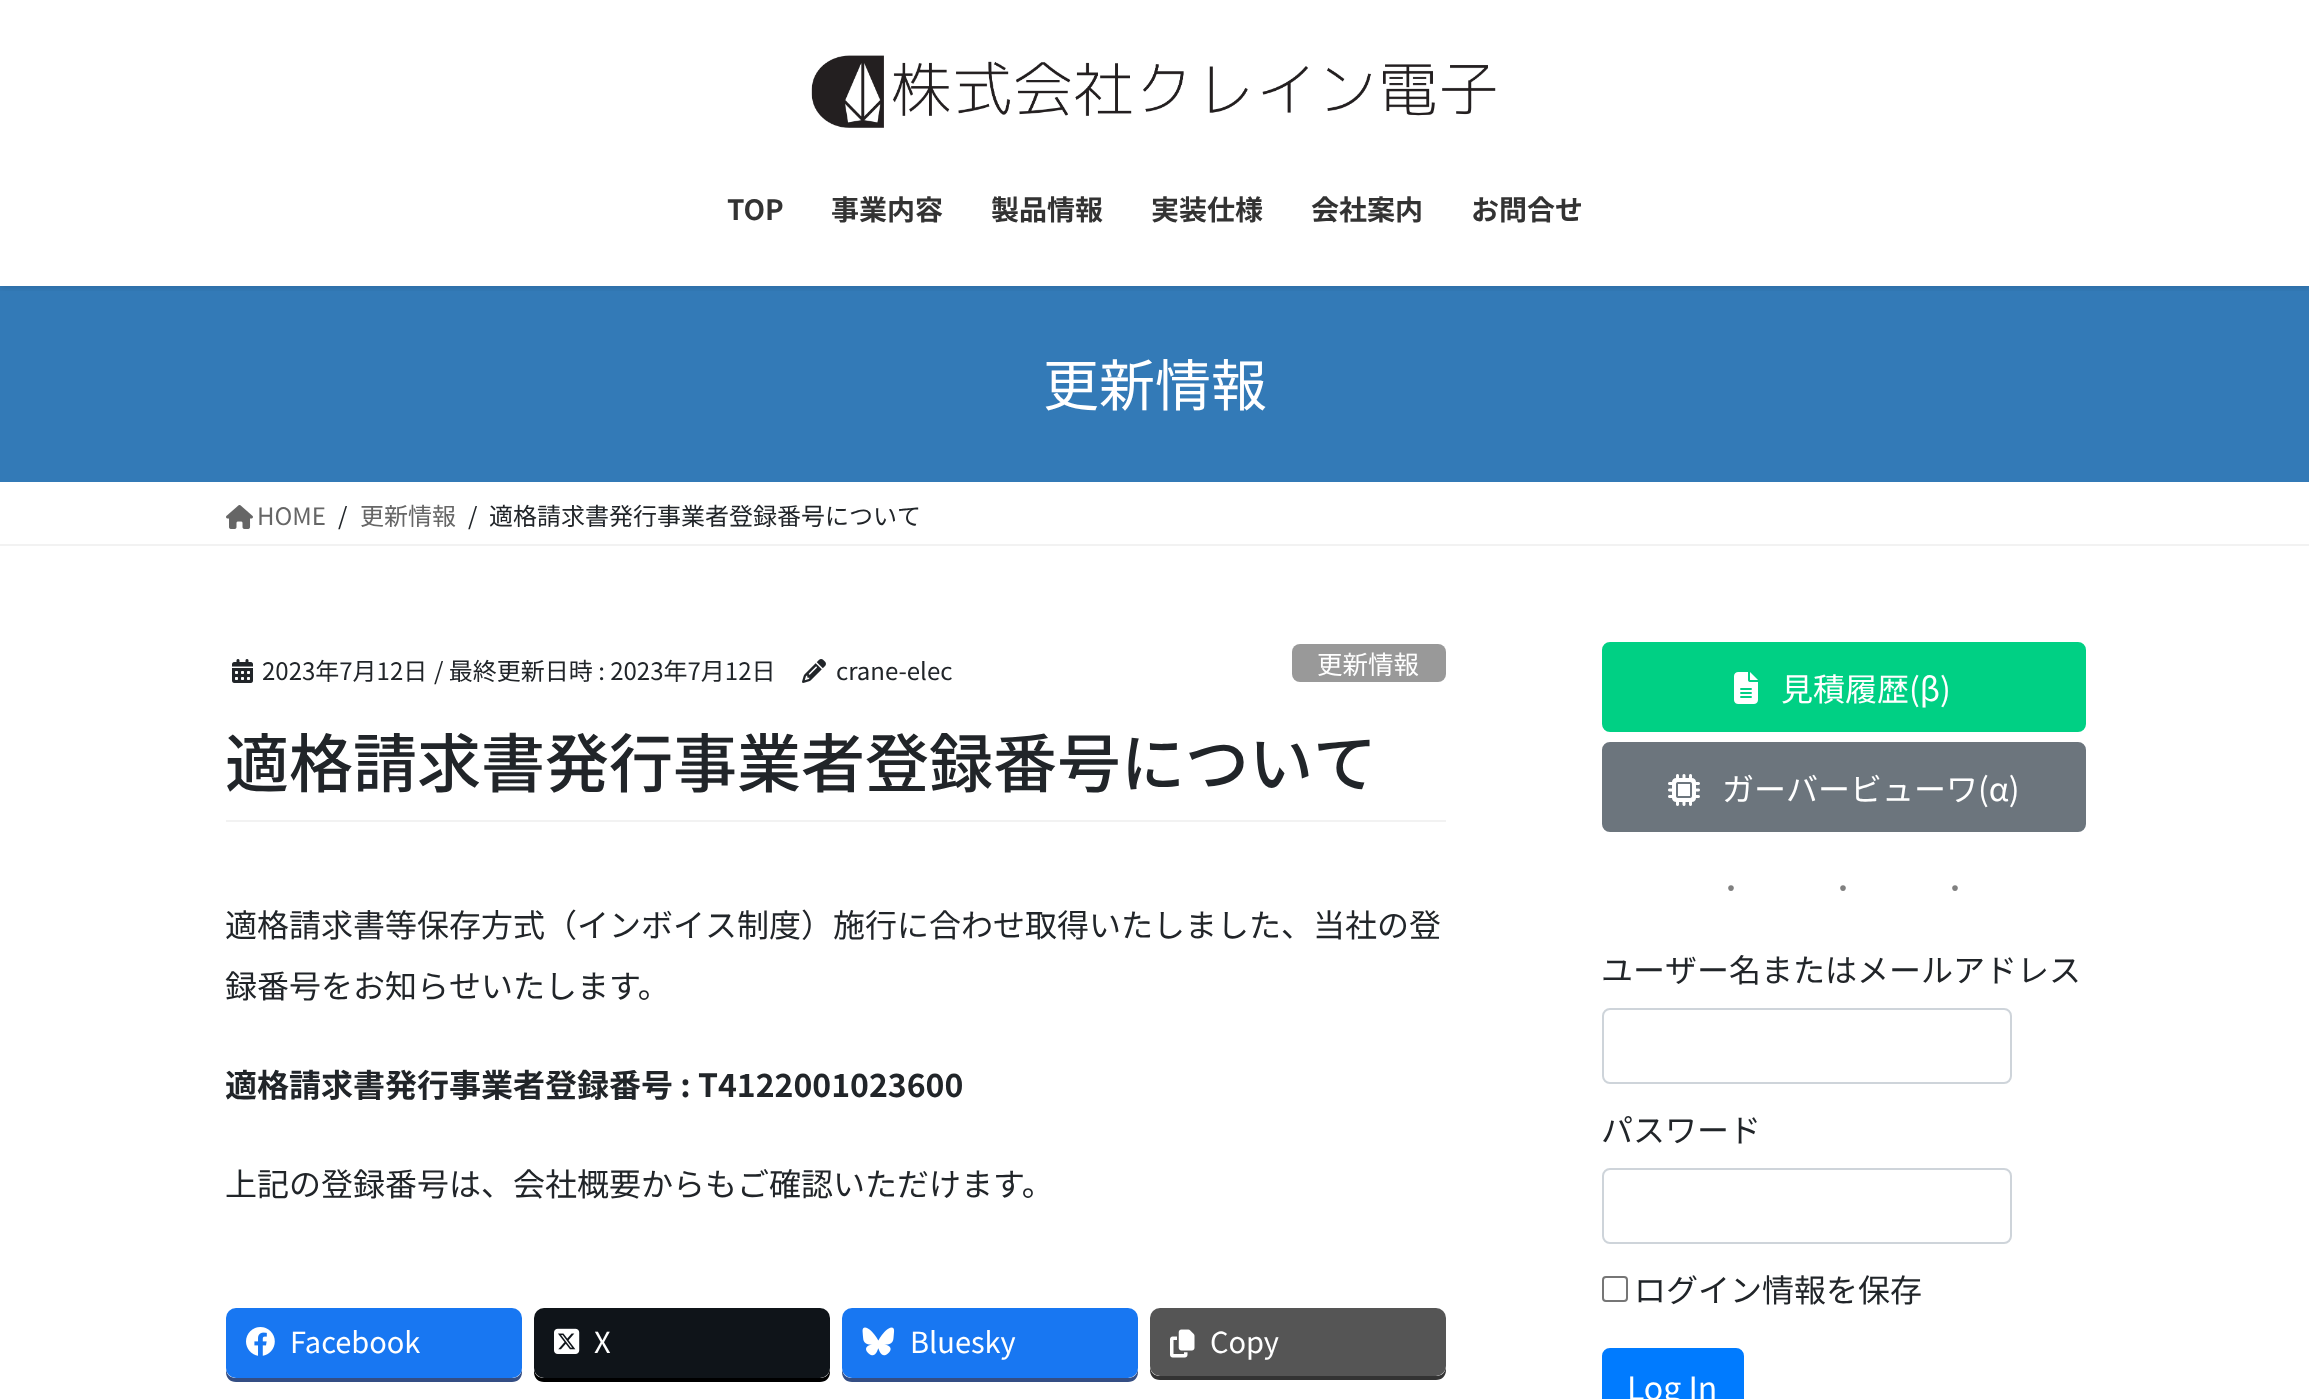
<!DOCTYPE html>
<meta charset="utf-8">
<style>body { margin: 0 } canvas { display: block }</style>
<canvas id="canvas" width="2309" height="1399"></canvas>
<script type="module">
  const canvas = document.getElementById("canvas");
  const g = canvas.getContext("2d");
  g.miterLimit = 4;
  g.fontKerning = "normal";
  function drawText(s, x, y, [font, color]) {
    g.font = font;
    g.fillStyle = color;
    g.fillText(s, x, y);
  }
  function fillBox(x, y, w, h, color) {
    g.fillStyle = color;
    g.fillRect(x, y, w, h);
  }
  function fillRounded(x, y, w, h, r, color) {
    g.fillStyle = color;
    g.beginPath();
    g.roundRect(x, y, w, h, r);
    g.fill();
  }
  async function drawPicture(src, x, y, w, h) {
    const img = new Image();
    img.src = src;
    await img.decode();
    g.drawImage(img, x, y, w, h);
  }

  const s1 = ["bold 28px Noto Sans JP", "#333333"];
  const s2 = ["56px Noto Sans JP", "#FFFFFF"];
  const s3 = ["24px Noto Sans JP", "#666666"];
  const s4 = ["24px Noto Sans JP", "#212529"];
  const s5 = ["25.5px Noto Sans JP", "#FFFFFF"];
  const s6 = ["500 64px Noto Sans JP", "#212529"];
  const s7 = ["32px Noto Sans JP", "#212529"];
  const s8 = ["bold 32px Noto Sans JP", "#212529"];
  const s9 = ["29px Noto Sans JP", "#FFFFFF"];
  const s10 = ["32px Noto Sans JP", "#FFFFFF"];
  const s11 = ["48px Liberation Serif", "#808080"];

  fillBox(0, 0, 2309, 1399, "#FFFFFF");
  fillBox(0, 286, 2309, 196, "#337AB7");
  g.save();
  g.beginPath();
  g.rect(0, 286, 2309, 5);
  g.clip();
  g.fillStyle = "rgba(0, 0, 0, 0.1)";
  g.filter = "blur(3px)";
  g.beginPath();
  g.rect(0, 2, 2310, 286);
  g.fill();
  g.filter = "none";
  g.restore();
  await drawPicture("pic1.png", 811, 55, 685, 73);
  drawText("TOP", 727, 220, s1);
  drawText("事業内容", 831, 220, s1);
  drawText("製品情報", 991, 220, s1);
  drawText("実装仕様", 1151, 220, s1);
  drawText("会社案内", 1311, 220, s1);
  drawText("お問合せ", 1471, 220, s1);
  drawText("更新情報", 1043, 406, s2);
  fillBox(0, 544, 2309, 2, "#F2F2F2");
  await drawPicture("pic2.png", 226, 505, 27, 24);
  drawText("HOME", 257, 525, s3);
  drawText("/", 338, 525, s4);
  drawText("更新情報", 360, 525, s3);
  drawText("/", 468, 525, s4);
  drawText("適格請求書発行事業者登録番号について", 489, 525, s4);
  fillBox(226, 820, 1220, 2, "#F2F2F2");
  await drawPicture("pic3.png", 232, 659, 21, 24);
  drawText("2023年7月12日", 262, 680, s4);
  drawText("/ 最終更新日時 : 2023年7月12日", 434, 680, s4);
  await drawPicture("pic4.png", 802, 659, 24, 24);
  drawText("crane-elec", 836, 680, s4);
  fillRounded(1292, 644, 154, 38, 8, "#999999");
  drawText("更新情報", 1317, 674, s5);
  drawText("適格請求書発行事業者登録番号について", 225, 787, s6);
  drawText("適格請求書等保存方式（インボイス制度）施行に合わせ取得いたしました、当社の登", 225, 937, s7);
  drawText("録番号をお知らせいたします。", 225, 998, s7);
  drawText("適格請求書発行事業者登録番号 : T4122001023600", 225, 1097, s8);
  drawText("上記の登録番号は、会社概要からもご確認いただけます。", 225, 1196, s7);
  g.fillStyle = "#344E84";
  g.beginPath();
  g.moveTo(226, 1368);
  g.lineTo(226, 1372);
  g.bezierCurveTo(226, 1378, 230, 1382, 236, 1382);
  g.lineTo(512, 1382);
  g.bezierCurveTo(518, 1382, 522, 1378, 522, 1372);
  g.lineTo(522, 1368);
  g.bezierCurveTo(522, 1374, 518, 1378, 512, 1378);
  g.lineTo(236, 1378);
  g.bezierCurveTo(230, 1378, 226, 1374, 226, 1368);
  g.closePath();
  g.fill();
  fillRounded(226, 1308, 296, 70, 10, "#1877F2");
  await drawPicture("pic5.png", 246, 1327, 29, 29);
  drawText("Facebook", 290, 1353, s9);
  g.fillStyle = "#000000";
  g.beginPath();
  g.moveTo(534, 1368);
  g.lineTo(534, 1372);
  g.bezierCurveTo(534, 1378, 538, 1382, 544, 1382);
  g.lineTo(820, 1382);
  g.bezierCurveTo(826, 1382, 830, 1378, 830, 1372);
  g.lineTo(830, 1368);
  g.bezierCurveTo(830, 1374, 826, 1378, 820, 1378);
  g.lineTo(544, 1378);
  g.bezierCurveTo(538, 1378, 534, 1374, 534, 1368);
  g.closePath();
  g.fill();
  fillRounded(534, 1308, 296, 70, 10, "#0F1419");
  await drawPicture("pic6.png", 554, 1328, 26, 26);
  drawText("X", 594, 1353, s9);
  g.fillStyle = "#344E84";
  g.beginPath();
  g.moveTo(842, 1368);
  g.lineTo(842, 1372);
  g.bezierCurveTo(842, 1378, 846, 1382, 852, 1382);
  g.lineTo(1128, 1382);
  g.bezierCurveTo(1134, 1382, 1138, 1378, 1138, 1372);
  g.lineTo(1138, 1368);
  g.bezierCurveTo(1138, 1374, 1134, 1378, 1128, 1378);
  g.lineTo(852, 1378);
  g.bezierCurveTo(846, 1378, 842, 1374, 842, 1368);
  g.closePath();
  g.fill();
  fillRounded(842, 1308, 296, 70, 10, "#1877F2");
  await drawPicture("pic7.png", 862, 1327, 33, 29);
  drawText("Bluesky", 910, 1353, s9);
  g.fillStyle = "#333333";
  g.beginPath();
  g.moveTo(1150, 1366);
  g.lineTo(1150, 1370);
  g.bezierCurveTo(1150, 1376, 1154, 1380, 1160, 1380);
  g.lineTo(1436, 1380);
  g.bezierCurveTo(1442, 1380, 1446, 1376, 1446, 1370);
  g.lineTo(1446, 1366);
  g.bezierCurveTo(1446, 1372, 1442, 1376, 1436, 1376);
  g.lineTo(1160, 1376);
  g.bezierCurveTo(1154, 1376, 1150, 1372, 1150, 1366);
  g.closePath();
  g.fill();
  fillRounded(1150, 1308, 296, 68, 10, "#555555");
  await drawPicture("pic8.png", 1170, 1329, 25, 29);
  drawText("Copy", 1210, 1353, s9);
  g.fillStyle = "#00D084";
  g.beginPath();
  g.roundRect(1603, 643, 482, 88, 7);
  g.fill();
  g.strokeStyle = "#00D084";
  g.lineWidth = 2;
  g.stroke();
  await drawPicture("pic9.png", 1734, 672, 24, 32);
  drawText("見積履歴(β)", 1781, 701, s10);
  g.fillStyle = "#6C757D";
  g.beginPath();
  g.roundRect(1603, 743, 482, 88, 7);
  g.fill();
  g.strokeStyle = "#6C757D";
  g.stroke();
  await drawPicture("pic10.png", 1668, 774, 32, 32);
  drawText("ガーバービューワ(α)", 1722, 801, s10);
  g.letterSpacing = "96px";
  drawText("···", 1723, 904, s11);
  g.letterSpacing = "0px";
  drawText("ユーザー名またはメールアドレス", 1601, 982, s7);
  g.beginPath();
  g.roundRect(1603, 1009, 408, 74, 7);
  g.strokeStyle = "#CED4DA";
  g.stroke();
  drawText("パスワード", 1601, 1142, s7);
  g.beginPath();
  g.roundRect(1603, 1169, 408, 74, 7);
  g.stroke();
  g.beginPath();
  g.roundRect(1603, 1277, 24, 24, 3);
  g.strokeStyle = "#767676";
  g.stroke();
  drawText("ログイン情報を保存", 1634, 1302, s7);
  g.fillStyle = "#007BFF";
  g.beginPath();
  g.roundRect(1603, 1349, 140, 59, 7);
  g.fill();
  g.strokeStyle = "#007BFF";
  g.stroke();
  drawText("Log In", 1627, 1400, s10);
</script>
